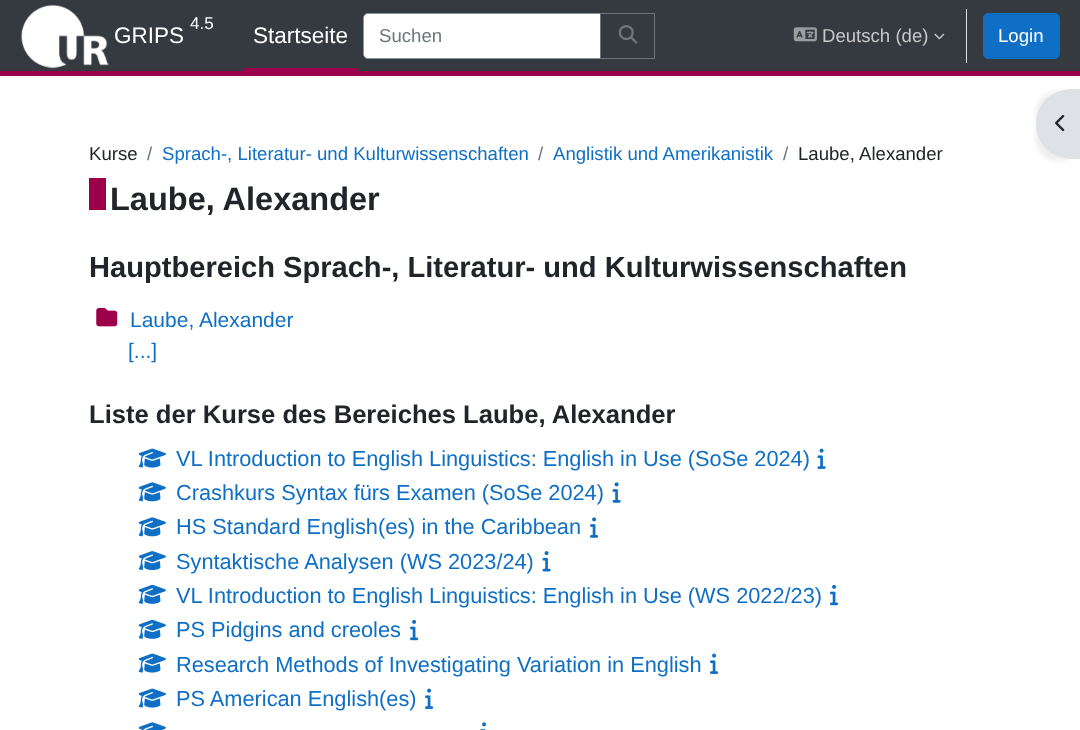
<!DOCTYPE html>
<meta charset="utf-8">
<style>body { margin: 0 } canvas { display: block }</style>
<canvas id="canvas" width="1080" height="730"></canvas>
<script type="module">
  const canvas = document.getElementById("canvas");
  const g = canvas.getContext("2d");
  g.miterLimit = 4;
  g.fontKerning = "normal";
  function drawText(s, x, y, [font, color]) {
    g.font = font;
    g.fillStyle = color;
    g.fillText(s, x, y);
  }
  function fillBox(x, y, w, h, color) {
    g.fillStyle = color;
    g.fillRect(x, y, w, h);
  }
  async function drawPicture(src, x, y, w, h) {
    const img = new Image();
    img.src = src;
    await img.decode();
    g.drawImage(img, x, y, w, h);
  }

  const s1 = ["17px Liberation Sans", "#FFFFFF"];
  const s2 = ["22.5px Liberation Sans", "#FFFFFF"];
  const s3 = ["18.6px Liberation Sans", "#6C757D"];
  const s4 = ["18.6px Liberation Sans", "#C8C8C8"];
  const s5 = ["18.6px Liberation Sans", "#FFFFFF"];
  const s6 = ["18.6px Liberation Sans", "#212529"];
  const s7 = ["18.6px Liberation Sans", "#0F6FC5"];
  const s8 = ["bold 32.5px Liberation Sans", "#212529"];
  const s9 = ["bold 29.1px Liberation Sans", "#212529"];
  const s10 = ["21px Liberation Sans", "#0F6FC5"];
  const s11 = ["bold 25.6px Liberation Sans", "#212529"];
  const s12 = ["21.75px Liberation Sans", "#0F6FC5"];

  fillBox(0, 0, 1080, 730, "#FFFFFF");
  fillBox(0, 0, 1080, 71, "#343A40");
  fillBox(0, 71, 1080, 5, "#9C004B");
  await drawPicture("pic1.png", 21, 4, 88, 65);
  drawText("4.5", 190, 29, s1);
  drawText("GRIPS", 114, 43, s2);
  fillBox(244, 68, 114, 3, "#9C004B");
  drawText("Startseite", 253, 43, s2);
  g.beginPath();
  g.roundRect(363.5, 13.5, 237, 45, [4.5, 0, 0, 4.5]);
  g.fill();
  g.strokeStyle = "#8F959E";
  g.stroke();
  drawText("Suchen", 379, 42, s3);
  g.strokeStyle = "#6C757D";
  g.strokeRect(600.5, 13.5, 54, 45);
  await drawPicture("pic2.png", 618, 25, 20, 19);
  await drawPicture("pic3.png", 793, 27, 24, 15);
  drawText("Deutsch (de)", 822, 42, s4);
  await drawPicture("pic4.png", 934, 33, 11, 7);
  fillBox(966, 9, 1, 54, "#DEE2E6");
  g.fillStyle = "#0F6FC5";
  g.beginPath();
  g.roundRect(983.5, 13.5, 76, 45, 4.5);
  g.fill();
  g.strokeStyle = "#0F6FC5";
  g.stroke();
  drawText("Login", 998, 42, s5);
  g.fillStyle = "rgba(0, 0, 0, 0.07)";
  g.filter = "blur(2.5px)";
  g.beginPath();
  g.roundRect(1036, 91, 44, 70, 35);
  g.fill();
  g.filter = "none";
  g.fillStyle = "#DEE2E6";
  g.beginPath();
  g.roundRect(1036, 89, 44, 70, [35, 0, 0, 35]);
  g.fill();
  await drawPicture("pic5.png", 1055, 114, 10, 18);
  drawText("Kurse", 89, 160, s6);
  drawText("/", 147, 160, s3);
  drawText("Sprach-, Literatur- und Kulturwissenschaften", 162, 160, s7);
  drawText("/", 538, 160, s3);
  drawText("Anglistik und Amerikanistik", 553, 160, s7);
  drawText("/", 783, 160, s3);
  drawText("Laube, Alexander", 798, 160, s6);
  fillBox(89, 178, 17, 32, "#9C004B");
  drawText("Laube, Alexander", 110, 210, s8);
  drawText("Hauptbereich Sprach-, Literatur- und Kulturwissenschaften", 89, 277, s9);
  await drawPicture("pic6.png", 96, 307, 22, 20);
  drawText("Laube, Alexander", 130, 327, s10);
  drawText("[...]", 128, 358, s10);
  drawText("Liste der Kurse des Bereiches Laube, Alexander", 89, 423, s11);
  await drawPicture("pic7.png", 138, 448, 28, 20);
  drawText("VL Introduction to English Linguistics: English in Use (SoSe 2024)", 176, 466, s12);
  await drawPicture("pic8.png", 817, 448, 9, 21);
  await drawPicture("pic9.png", 138, 482, 28, 20);
  drawText("Crashkurs Syntax fürs Examen (SoSe 2024)", 176, 500, s12);
  await drawPicture("pic10.png", 612, 482, 9, 21);
  await drawPicture("pic9.png", 138, 517, 28, 20);
  drawText("HS Standard English(es) in the Caribbean", 176, 534, s12);
  await drawPicture("pic11.png", 590, 517, 9, 21);
  await drawPicture("pic12.png", 138, 551, 28, 20);
  drawText("Syntaktische Analysen (WS 2023/24)", 176, 569, s12);
  await drawPicture("pic13.png", 542, 551, 9, 21);
  await drawPicture("pic14.png", 138, 584, 28, 20);
  drawText("VL Introduction to English Linguistics: English in Use (WS 2022/23)", 176, 603, s12);
  await drawPicture("pic15.png", 830, 584, 9, 22);
  await drawPicture("pic14.png", 138, 619, 28, 20);
  drawText("PS Pidgins and creoles", 176, 637, s12);
  await drawPicture("pic15.png", 410, 619, 9, 22);
  await drawPicture("pic7.png", 138, 653, 28, 20);
  drawText("Research Methods of Investigating Variation in English", 176, 672, s12);
  await drawPicture("pic16.png", 710, 653, 9, 21);
  await drawPicture("pic7.png", 138, 688, 28, 20);
  drawText("PS American English(es)", 176, 706, s12);
  await drawPicture("pic16.png", 425, 688, 9, 21);
  await drawPicture("pic17.png", 138, 722, 28, 8);
  await drawPicture("pic18.png", 480, 722, 7, 8);
</script>
